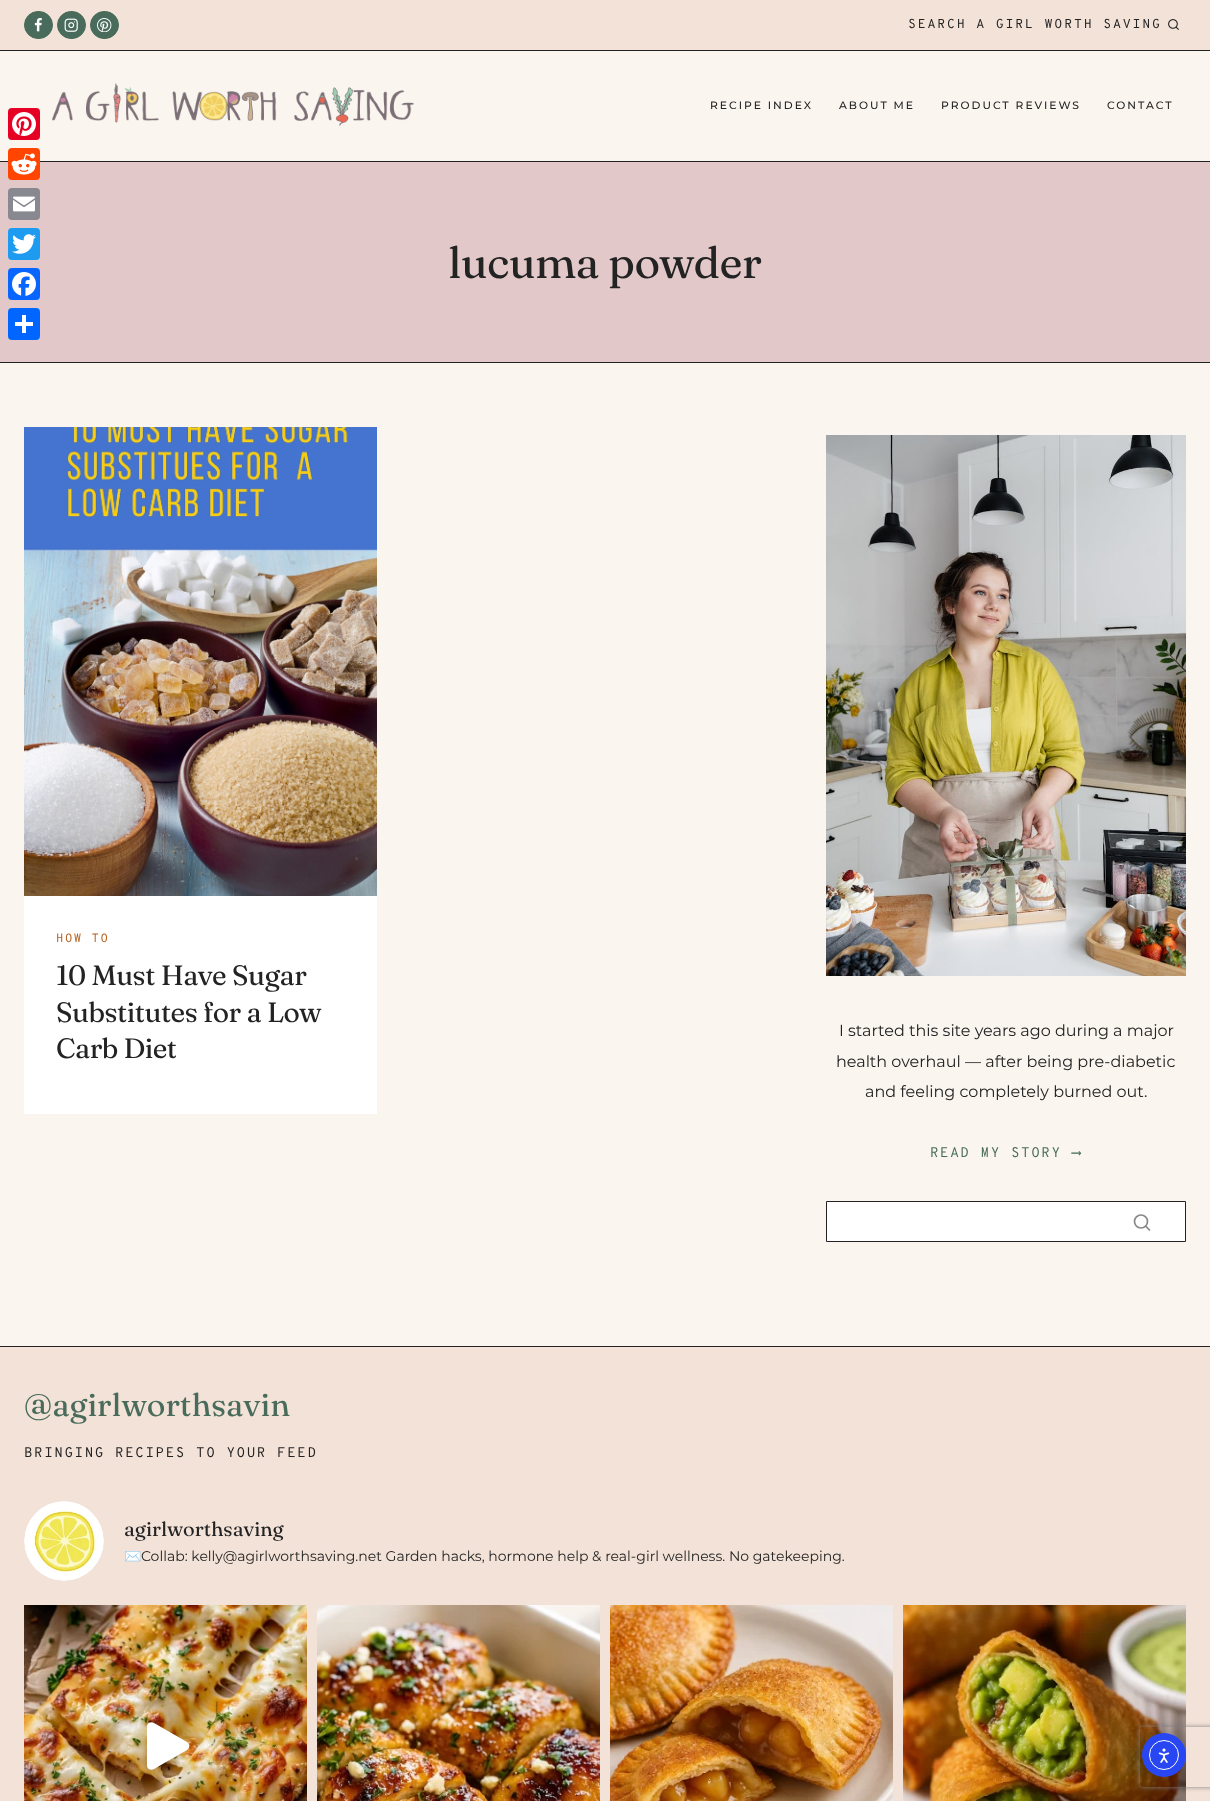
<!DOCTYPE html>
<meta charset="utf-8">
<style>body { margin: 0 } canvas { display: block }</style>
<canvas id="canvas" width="1210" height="1801"></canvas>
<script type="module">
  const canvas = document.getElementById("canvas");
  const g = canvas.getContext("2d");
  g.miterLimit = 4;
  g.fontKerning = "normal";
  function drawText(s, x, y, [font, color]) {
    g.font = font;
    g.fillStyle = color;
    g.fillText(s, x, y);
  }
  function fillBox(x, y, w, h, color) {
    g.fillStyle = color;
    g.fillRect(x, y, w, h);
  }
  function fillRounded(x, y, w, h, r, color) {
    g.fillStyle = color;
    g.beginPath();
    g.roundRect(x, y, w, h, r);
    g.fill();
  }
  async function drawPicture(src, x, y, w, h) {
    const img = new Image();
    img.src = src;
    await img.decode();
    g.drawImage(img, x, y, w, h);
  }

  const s1 = ["300 13px Overpass Mono", "#232323"];
  const s2 = ["500 10.75px Montserrat", "#232323"];
  const s3 = ["44px Fraunces", "#232323"];
  const s4 = ["300 12px Overpass Mono", "#B45C18"];
  const s5 = ["28px Fraunces", "#232323"];
  const s6 = ["16px Montserrat", "#232323"];
  const s7 = ["300 14px Overpass Mono", "#486B5B"];
  const s8 = ["14px DejaVu Sans Mono", "#486B5B"];
  const s9 = ["32px Fraunces", "#486B5B"];
  const s10 = ["300 14px Overpass Mono", "#232323"];
  const s11 = ["20px Fraunces", "#232323"];
  const s12 = ["14px Noto Color Emoji", "#232323"];
  const s13 = ["14px Montserrat", "#232323"];

  fillBox(0, 0, 1210, 1801, "#FAF5EF");
  fillRounded(8, 108, 32, 32, 4, "#E60023");
  await drawPicture("pic1.png", 12, 112, 24, 24);
  fillBox(0, 161, 1210, 1, "#232323");
  fillBox(0, 162, 1210, 200, "#E2C8C8");
  fillRounded(8, 148, 32, 32, 4, "#FF4500");
  await drawPicture("pic2.png", 11, 153, 26, 22);
  fillRounded(8, 188, 32, 32, 4, "#888990");
  await drawPicture("pic3.png", 13, 196, 22, 16);
  fillRounded(8, 228, 32, 32, 4, "#1D9BF0");
  await drawPicture("pic4.png", 12, 234, 24, 20);
  fillRounded(8, 268, 32, 32, 4, "#0866FF");
  await drawPicture("pic5.png", 12, 272, 24, 24);
  fillRounded(8, 308, 32, 32, 4, "#0166FF");
  fillBox(22, 315, 4, 18, "#FFFFFF");
  fillBox(15, 322, 18, 4, "#FFFFFF");
  fillBox(0, 0, 1210, 50, "#F3E2D7");
  fillBox(0, 50, 1210, 1, "#232323");
  g.fillStyle = "#486B5B";
  g.beginPath();
  g.roundRect(24.5, 11.5, 28, 27, 13.5);
  g.fill();
  g.strokeStyle = "#486B5B";
  g.stroke();
  await drawPicture("pic6.png", 34, 18, 8, 14);
  g.beginPath();
  g.roundRect(57.5, 11.5, 28, 27, 13.5);
  g.fill();
  g.stroke();
  await drawPicture("pic7.png", 64, 18, 14, 14);
  g.beginPath();
  g.roundRect(90.5, 11.5, 28, 27, 13.5);
  g.fill();
  g.stroke();
  await drawPicture("pic8.png", 97, 18, 15, 14);
  g.letterSpacing = "1.75px";
  drawText("SEARCH A GIRL WORTH SAVING", 908, 28, s1);
  await drawPicture("pic9.png", 1168, 19, 11, 11);
  await drawPicture("pic10.png", 52, 83, 362, 43);
  g.letterSpacing = "2px";
  drawText("RECIPE INDEX", 710, 109, s2);
  drawText("ABOUT ME", 839, 109, s2);
  drawText("PRODUCT REVIEWS", 941, 109, s2);
  drawText("CONTACT", 1107, 109, s2);
  fillBox(0, 362, 1210, 1, "#232323");
  g.letterSpacing = "-0.5px";
  drawText("lucuma powder", 448, 278, s3);
  fillBox(24, 896, 353, 218, "#FFFFFF");
  await drawPicture("pic11.png", 24, 427, 353, 469);
  g.letterSpacing = "1.5px";
  drawText("HOW TO", 56, 942, s4);
  g.letterSpacing = "-0.5px";
  drawText("10 Must Have Sugar", 56, 985, s5);
  drawText("Substitutes for a Low", 56, 1022, s5);
  drawText("Carb Diet", 56, 1058, s5);
  await drawPicture("pic12.png", 826, 435, 360, 541);
  g.letterSpacing = "0px";
  drawText("I started this site years ago during a major", 839, 1036, s6);
  drawText("health overhaul — after being pre-diabetic", 836, 1067, s6);
  drawText("and feeling completely burned out.", 865, 1097, s6);
  g.letterSpacing = "1.5px";
  drawText("READ MY STORY", 930, 1157, s7);
  drawText("⟶", 1072, 1157, s8);
  g.fillStyle = "#FFFFFF";
  g.beginPath();
  g.rect(826.5, 1201.5, 359, 40);
  g.fill();
  g.strokeStyle = "#232323";
  g.stroke();
  g.beginPath();
  g.arc(1141, 1221.5, 6.5, 0, Math.PI * 2);
  g.strokeStyle = "#888888";
  g.lineWidth = 1.7;
  g.stroke();
  g.beginPath();
  g.moveTo(1149.5, 1230);
  g.lineTo(1146, 1226.5);
  g.lineCap = "round";
  g.lineJoin = "round";
  g.stroke();
  fillBox(0, 1347, 1210, 454, "#F3E2D7");
  fillBox(0, 1346, 1210, 1, "#232323");
  g.letterSpacing = "0px";
  drawText("@agirlworthsavin", 24, 1416, s9);
  g.letterSpacing = "1.5px";
  drawText("BRINGING RECIPES TO YOUR FEED", 24, 1457, s10);
  await drawPicture("pic13.png", 24, 1501, 80, 80);
  g.letterSpacing = "0px";
  drawText("agirlworthsaving", 124, 1536, s11);
  drawText("✉️", 124, 1561, s12);
  drawText("Collab: kelly@agirlworthsaving.net Garden hacks, hormone help & real-girl wellness. No gatekeeping.", 141, 1561, s13);
  await drawPicture("pic14.png", 24, 1605, 283, 196);
  g.fillStyle = "#FFFFFF";
  g.beginPath();
  g.moveTo(187, 1742);
  g.lineTo(154, 1723);
  g.bezierCurveTo(151, 1721, 147, 1723, 147, 1726);
  g.lineTo(147, 1766);
  g.bezierCurveTo(147, 1769, 151, 1771, 154, 1769);
  g.lineTo(187, 1750);
  g.bezierCurveTo(190, 1748, 190, 1744, 187, 1742);
  g.closePath();
  g.fill();
  await drawPicture("pic15.png", 317, 1605, 283, 196);
  await drawPicture("pic16.png", 610, 1605, 283, 196);
  await drawPicture("pic17.png", 903, 1605, 283, 196);
  g.save();
  g.beginPath();
  g.moveTo(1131, 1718);
  g.lineTo(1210, 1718);
  g.lineTo(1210, 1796);
  g.lineTo(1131, 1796);
  g.closePath();
  g.moveTo(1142, 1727);
  g.lineTo(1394, 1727);
  g.bezierCurveTo(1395, 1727, 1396, 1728, 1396, 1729);
  g.lineTo(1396, 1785);
  g.bezierCurveTo(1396, 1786, 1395, 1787, 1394, 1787);
  g.lineTo(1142, 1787);
  g.bezierCurveTo(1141, 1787, 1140, 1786, 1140, 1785);
  g.lineTo(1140, 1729);
  g.bezierCurveTo(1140, 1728, 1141, 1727, 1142, 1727);
  g.closePath();
  g.clip("evenodd");
  g.fillStyle = "#808080";
  g.filter = "blur(2.5px)";
  g.beginPath();
  g.roundRect(1140, 1727, 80, 60, 2);
  g.fill();
  g.filter = "none";
  g.restore();
  g.fillStyle = "#2847F3";
  g.beginPath();
  g.arc(1164, 1755, 22, 0, Math.PI * 2);
  g.fill();
  g.beginPath();
  g.arc(1164, 1755, 14.5, 0, Math.PI * 2);
  g.strokeStyle = "#FFFFFF";
  g.lineWidth = 1;
  g.stroke();
  await drawPicture("pic18.png", 1158, 1748, 12, 15);
</script>
